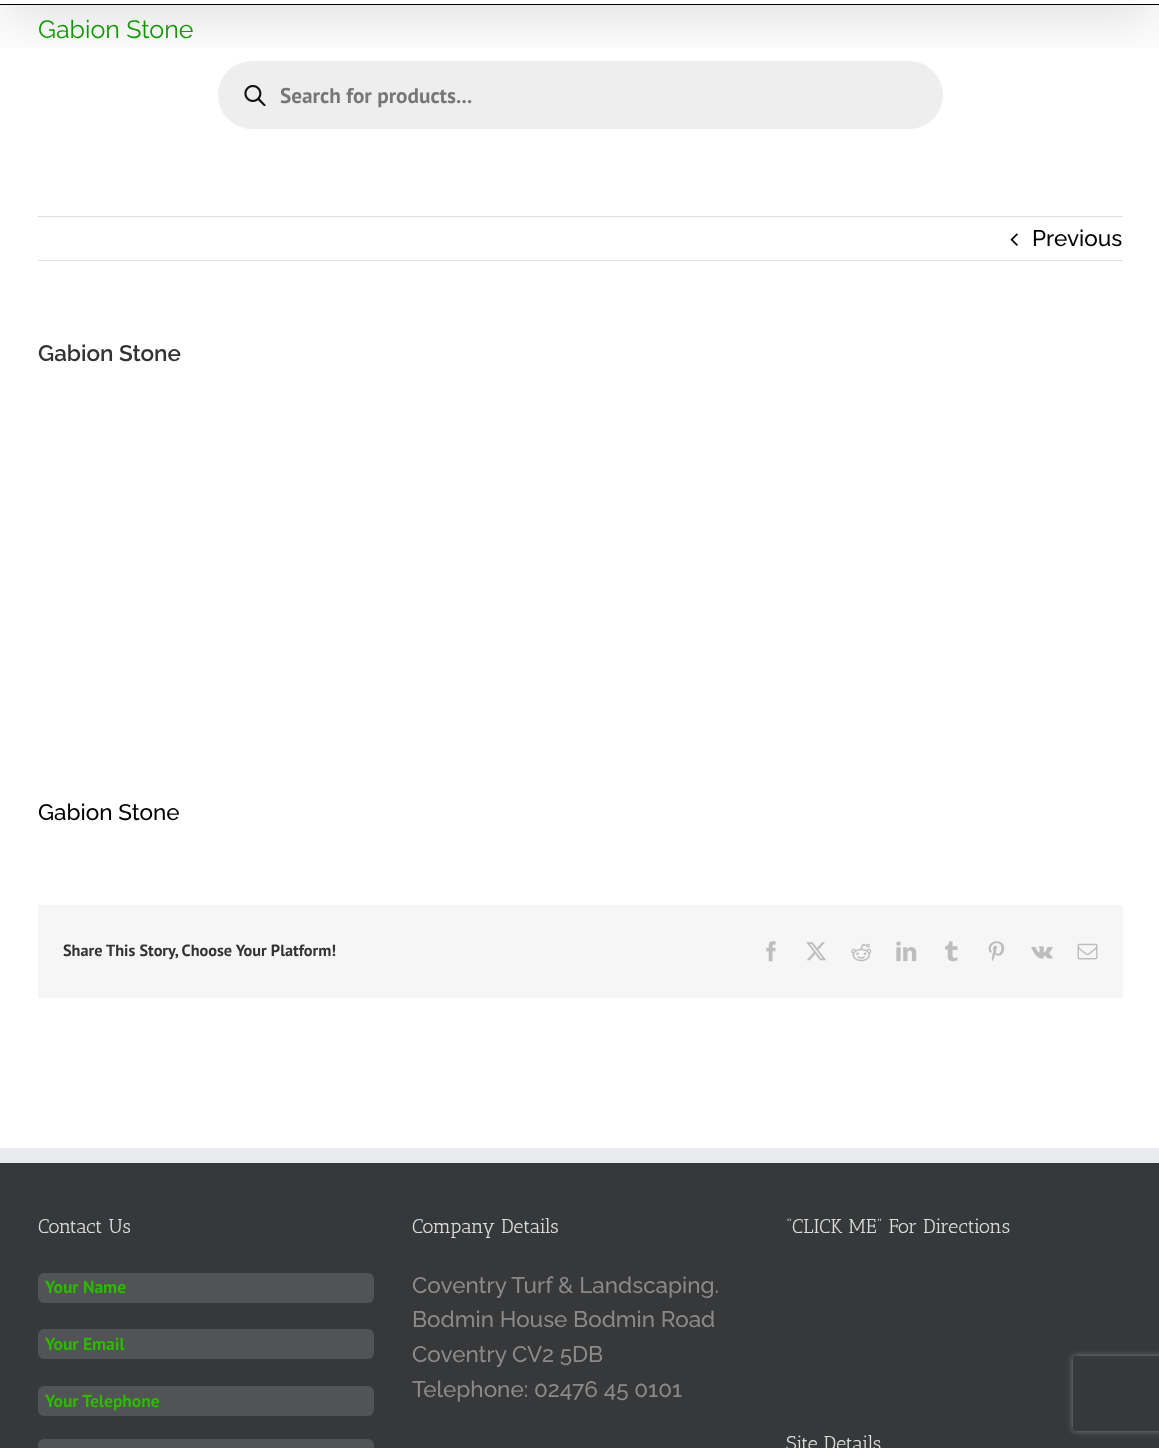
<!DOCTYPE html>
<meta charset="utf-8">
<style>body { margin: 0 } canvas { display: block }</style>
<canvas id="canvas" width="1159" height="1448"></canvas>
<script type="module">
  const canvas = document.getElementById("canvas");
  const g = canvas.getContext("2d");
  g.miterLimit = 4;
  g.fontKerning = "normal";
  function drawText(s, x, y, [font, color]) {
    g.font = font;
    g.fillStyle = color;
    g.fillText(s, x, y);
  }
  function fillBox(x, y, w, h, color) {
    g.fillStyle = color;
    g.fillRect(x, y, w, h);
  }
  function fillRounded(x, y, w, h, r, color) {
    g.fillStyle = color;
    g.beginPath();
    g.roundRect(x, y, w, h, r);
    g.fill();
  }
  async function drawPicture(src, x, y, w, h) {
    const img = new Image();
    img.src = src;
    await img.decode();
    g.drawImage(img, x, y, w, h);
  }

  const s1 = ["25px Raleway", "#0F9900"];
  const s2 = ["bold 21.25px PT Sans", "#777777"];
  const s3 = ["500 22.5px Raleway", "#000000"];
  const s4 = ["600 22.5px Raleway", "#333333"];
  const s5 = ["bold 16.25px PT Sans", "#333333"];
  const s6 = ["20px Antic Slab", "#DDDDDD"];
  const s7 = ["bold 17.5px PT Sans", "#2BBA00"];
  const s8 = ["500 22.5px Raleway", "#8C8989"];

  fillBox(0, 0, 1159, 1448, "#FFFFFF");
  fillRounded(218, 61, 725, 68, 34, "#EEEEEE");
  await drawPicture("pic1.png", 244, 85, 22, 21);
  g.save();
  g.beginPath();
  g.rect(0, 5, 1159, 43);
  g.clip();
  g.fillStyle = "rgba(0, 0, 0, 0.14)";
  g.filter = "blur(31px)";
  g.beginPath();
  g.rect(3, -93, 1155, 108);
  g.fill();
  g.filter = "none";
  g.restore();
  fillBox(0, 4, 1159, 1, "#000000");
  drawText("Gabion Stone", 38, 38, s1);
  drawText("Search for products...", 280, 103, s2);
  fillBox(38, 216, 1085, 1, "#E0DEDE");
  fillBox(38, 260, 1085, 1, "#E0DEDE");
  await drawPicture("pic2.png", 1010, 233, 8, 13);
  drawText("Previous", 1032, 246, s3);
  drawText("Gabion Stone", 38, 361, s4);
  drawText("Gabion Stone", 38, 820, s3);
  fillBox(38, 905, 1085, 93, "#F6F6F6");
  drawText("Share This Story, Choose Your Platform!", 63, 956, s5);
  await drawPicture("pic3.png", 766, 941, 10, 21);
  await drawPicture("pic4.png", 806, 942, 20, 19);
  await drawPicture("pic5.png", 851, 943, 21, 19);
  await drawPicture("pic6.png", 896, 941, 21, 21);
  await drawPicture("pic7.png", 945, 941, 13, 21);
  await drawPicture("pic8.png", 988, 941, 17, 20);
  await drawPicture("pic9.png", 1031, 946, 22, 13);
  await drawPicture("pic10.png", 1077, 943, 21, 17);
  fillBox(0, 1163, 1159, 285, "#363839");
  fillBox(0, 1148, 1159, 15, "#E9EAEE");
  drawText("Contact Us", 38, 1233, s6);
  fillRounded(38, 1273, 336, 30, 6, "#515354");
  drawText("Your Name", 45, 1293, s7);
  fillRounded(38, 1329, 336, 30, 6, "#515354");
  drawText("Your Email", 45, 1350, s7);
  fillRounded(38, 1386, 336, 30, 6, "#515354");
  drawText("Your Telephone", 45, 1407, s7);
  fillRounded(38, 1439, 336, 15, 6, "#515354");
  drawText("Company Details", 412, 1233, s6);
  drawText("Coventry Turf & Landscaping.", 412, 1293, s8);
  drawText("Bodmin House Bodmin Road", 412, 1327, s8);
  drawText("Coventry CV2 5DB", 412, 1362, s8);
  drawText("Telephone: 02476 45 0101", 412, 1397, s8);
  drawText("“CLICK ME” For Directions", 786, 1233, s6);
  drawText("Site Details", 786, 1450, s6);
  g.save();
  g.beginPath();
  g.moveTo(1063, 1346);
  g.lineTo(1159, 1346);
  g.lineTo(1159, 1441);
  g.lineTo(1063, 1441);
  g.closePath();
  g.moveTo(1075.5, 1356);
  g.lineTo(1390.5, 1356);
  g.bezierCurveTo(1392, 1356, 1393, 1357, 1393, 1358.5);
  g.lineTo(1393, 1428.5);
  g.bezierCurveTo(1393, 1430, 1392, 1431, 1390.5, 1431);
  g.lineTo(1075.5, 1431);
  g.bezierCurveTo(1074, 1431, 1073, 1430, 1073, 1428.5);
  g.lineTo(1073, 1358.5);
  g.bezierCurveTo(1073, 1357, 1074, 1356, 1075.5, 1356);
  g.closePath();
  g.clip("evenodd");
  g.fillStyle = "#808080";
  g.filter = "blur(3px)";
  g.beginPath();
  g.roundRect(1073, 1356, 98, 75, 2.5);
  g.fill();
  g.filter = "none";
  g.restore();
</script>
